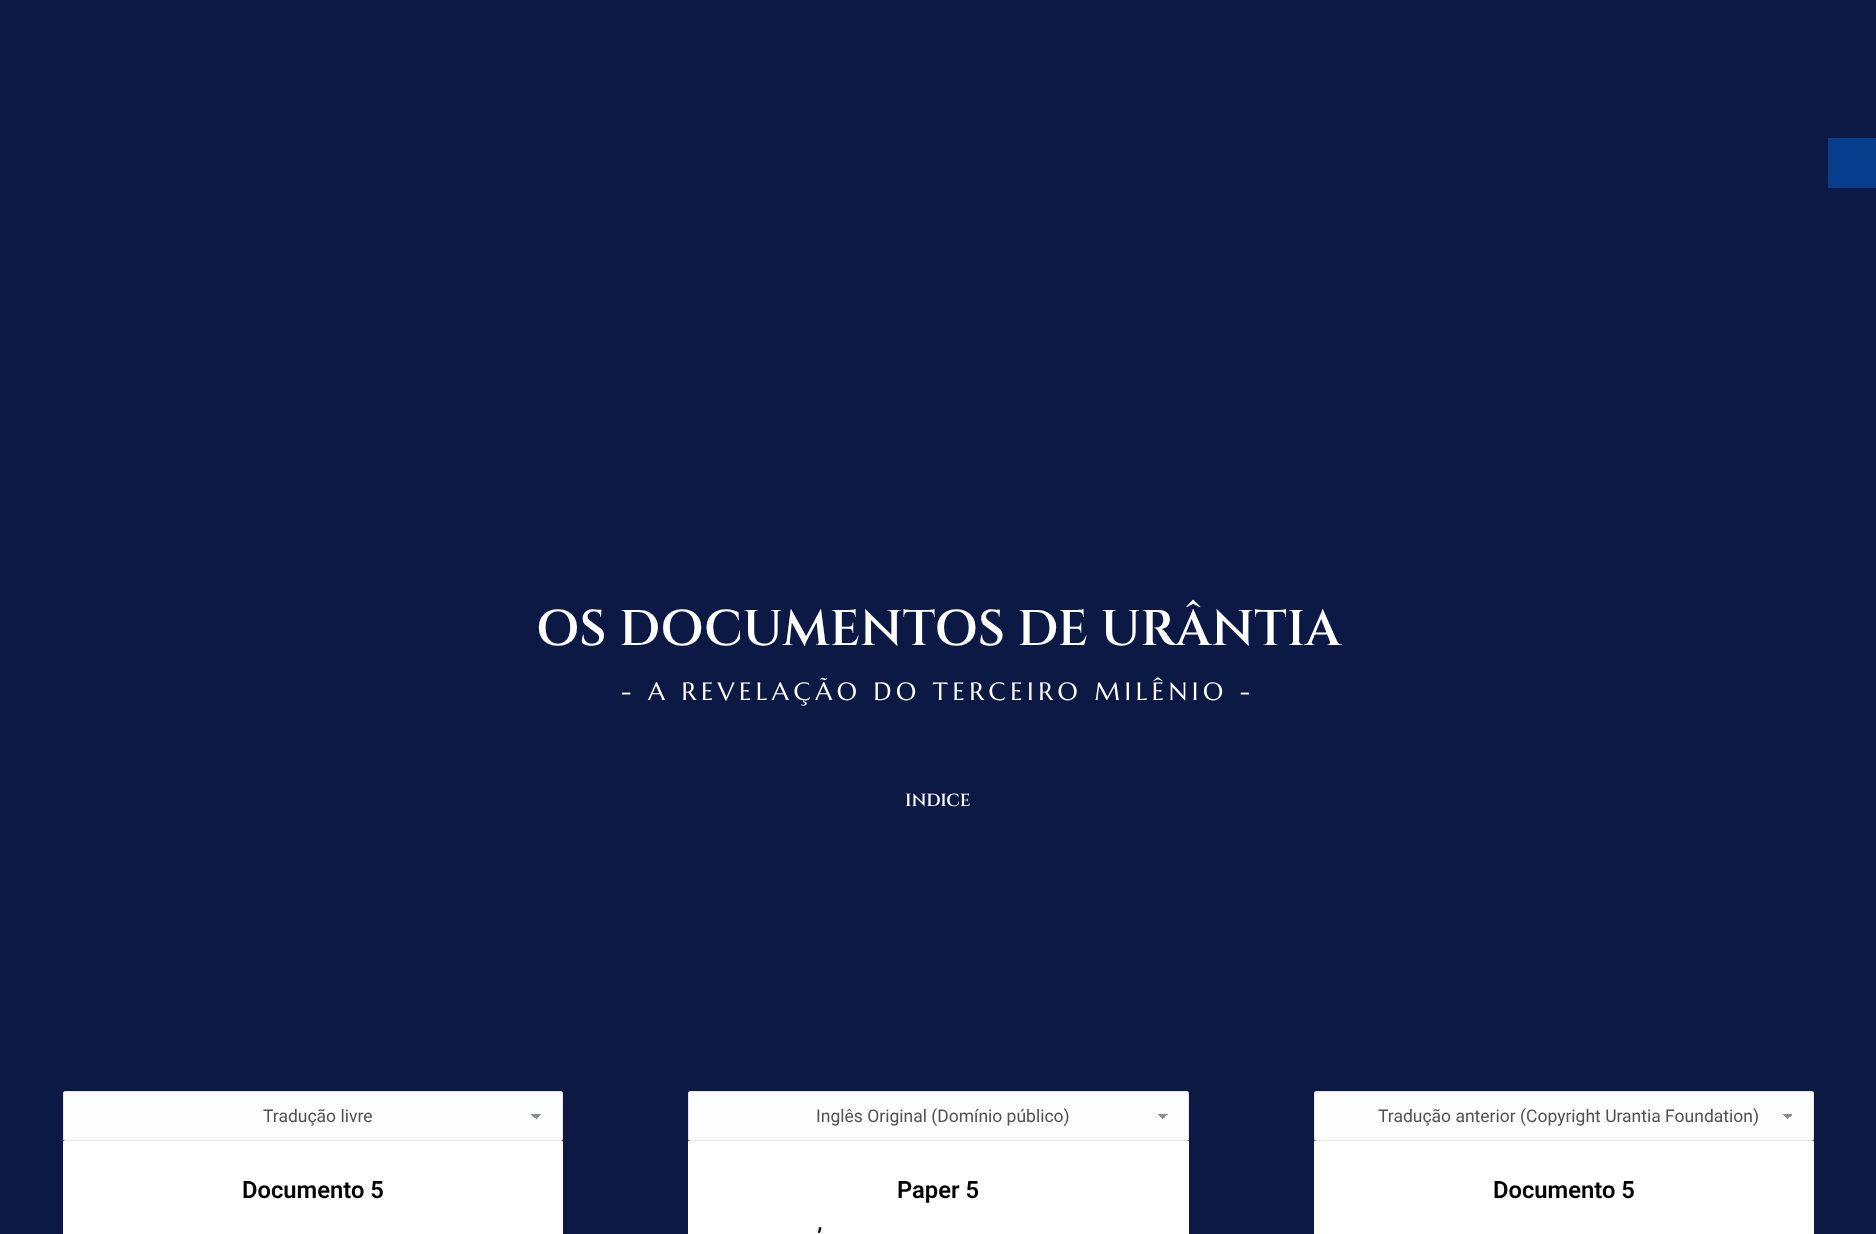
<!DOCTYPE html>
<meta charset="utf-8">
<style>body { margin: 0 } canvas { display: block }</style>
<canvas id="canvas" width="1876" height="1234"></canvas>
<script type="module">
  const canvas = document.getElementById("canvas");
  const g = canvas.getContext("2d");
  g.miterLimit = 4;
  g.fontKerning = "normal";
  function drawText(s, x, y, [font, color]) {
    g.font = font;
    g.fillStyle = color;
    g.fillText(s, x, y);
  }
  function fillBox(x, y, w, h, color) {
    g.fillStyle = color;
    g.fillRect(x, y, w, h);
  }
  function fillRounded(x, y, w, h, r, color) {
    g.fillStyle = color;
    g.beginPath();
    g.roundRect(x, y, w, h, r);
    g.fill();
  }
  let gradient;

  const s1 = ["600 50px Cinzel", "#FFFFFF"];
  const s2 = ["25px Marcellus", "#FFFFFF"];
  const s3 = ["600 17.5px Cinzel", "#FFFFFF"];
  const s4 = ["17.5px Roboto", "#515151"];
  const s5 = ["600 23.75px Roboto", "#000000"];

  fillBox(0, 0, 1876, 1234, "#0D1945");
  fillBox(1828, 138, 48, 50, "#063D8D");
  drawText("OS DOCUMENTOS DE URÂNTIA", 536, 645, s1);
  g.letterSpacing = "4.6px";
  drawText("- A REVELAÇÃO DO TERCEIRO MILÊNIO -", 621, 700, s2);
  g.letterSpacing = "0px";
  drawText("INDICE", 905, 806, s3);
  fillRounded(63, 1091, 500, 50, 2.5, "#FDFDFD");
  gradient = g.createLinearGradient(536, 1113, 543, 1119);
  gradient.addColorStop(0.5, "#8B8D94");
  gradient.addColorStop(0.5, "#FDFDFD");
  g.fillStyle = gradient;
  g.fillRect(536, 1114, 7, 5);
  gradient = g.createLinearGradient(530, 1119, 536, 1113);
  gradient.addColorStop(0.5, "#FDFDFD");
  gradient.addColorStop(0.5, "#8B8D94");
  g.fillStyle = gradient;
  g.fillRect(530, 1114, 6, 4);
  g.beginPath();
  g.roundRect(63.5, 1091.5, 499, 49, 2);
  g.strokeStyle = "rgba(51, 51, 51, 0.11)";
  g.stroke();
  drawText("Tradução livre", 263, 1122, s4);
  fillBox(63, 1141, 500, 93, "#FFFFFF");
  drawText("Documento 5", 242, 1198, s5);
  fillRounded(688, 1091, 501, 50, 2.5, "#FDFDFD");
  gradient = g.createLinearGradient(1163, 1113, 1169, 1119);
  gradient.addColorStop(0.5, "#8B8D94");
  gradient.addColorStop(0.5, "#FDFDFD");
  g.fillStyle = gradient;
  g.fillRect(1163, 1114, 6, 4);
  gradient = g.createLinearGradient(1156, 1119, 1163, 1113);
  gradient.addColorStop(0.5, "#FDFDFD");
  gradient.addColorStop(0.5, "#8B8D94");
  g.fillStyle = gradient;
  g.fillRect(1156, 1114, 7, 5);
  g.beginPath();
  g.roundRect(688.5, 1091.5, 500, 49, 2);
  g.stroke();
  drawText("Inglês Original (Domínio público)", 816, 1122, s4);
  fillBox(688, 1141, 501, 93, "#FFFFFF");
  drawText("Paper 5", 897, 1198, s5);
  drawText("’", 817, 1245, s5);
  fillRounded(1314, 1091, 500, 50, 2.5, "#FDFDFD");
  gradient = g.createLinearGradient(1788, 1113, 1794, 1119);
  gradient.addColorStop(0.5, "#8B8D94");
  gradient.addColorStop(0.5, "#FDFDFD");
  g.fillStyle = gradient;
  g.fillRect(1788, 1114, 6, 4);
  gradient = g.createLinearGradient(1781, 1119, 1788, 1113);
  gradient.addColorStop(0.5, "#FDFDFD");
  gradient.addColorStop(0.5, "#8B8D94");
  g.fillStyle = gradient;
  g.fillRect(1781, 1114, 7, 5);
  g.beginPath();
  g.roundRect(1314.5, 1091.5, 499, 49, 2);
  g.stroke();
  drawText("Tradução anterior (Copyright Urantia Foundation)", 1378, 1122, s4);
  fillBox(1314, 1141, 500, 93, "#FFFFFF");
  drawText("Documento 5", 1493, 1198, s5);
</script>
